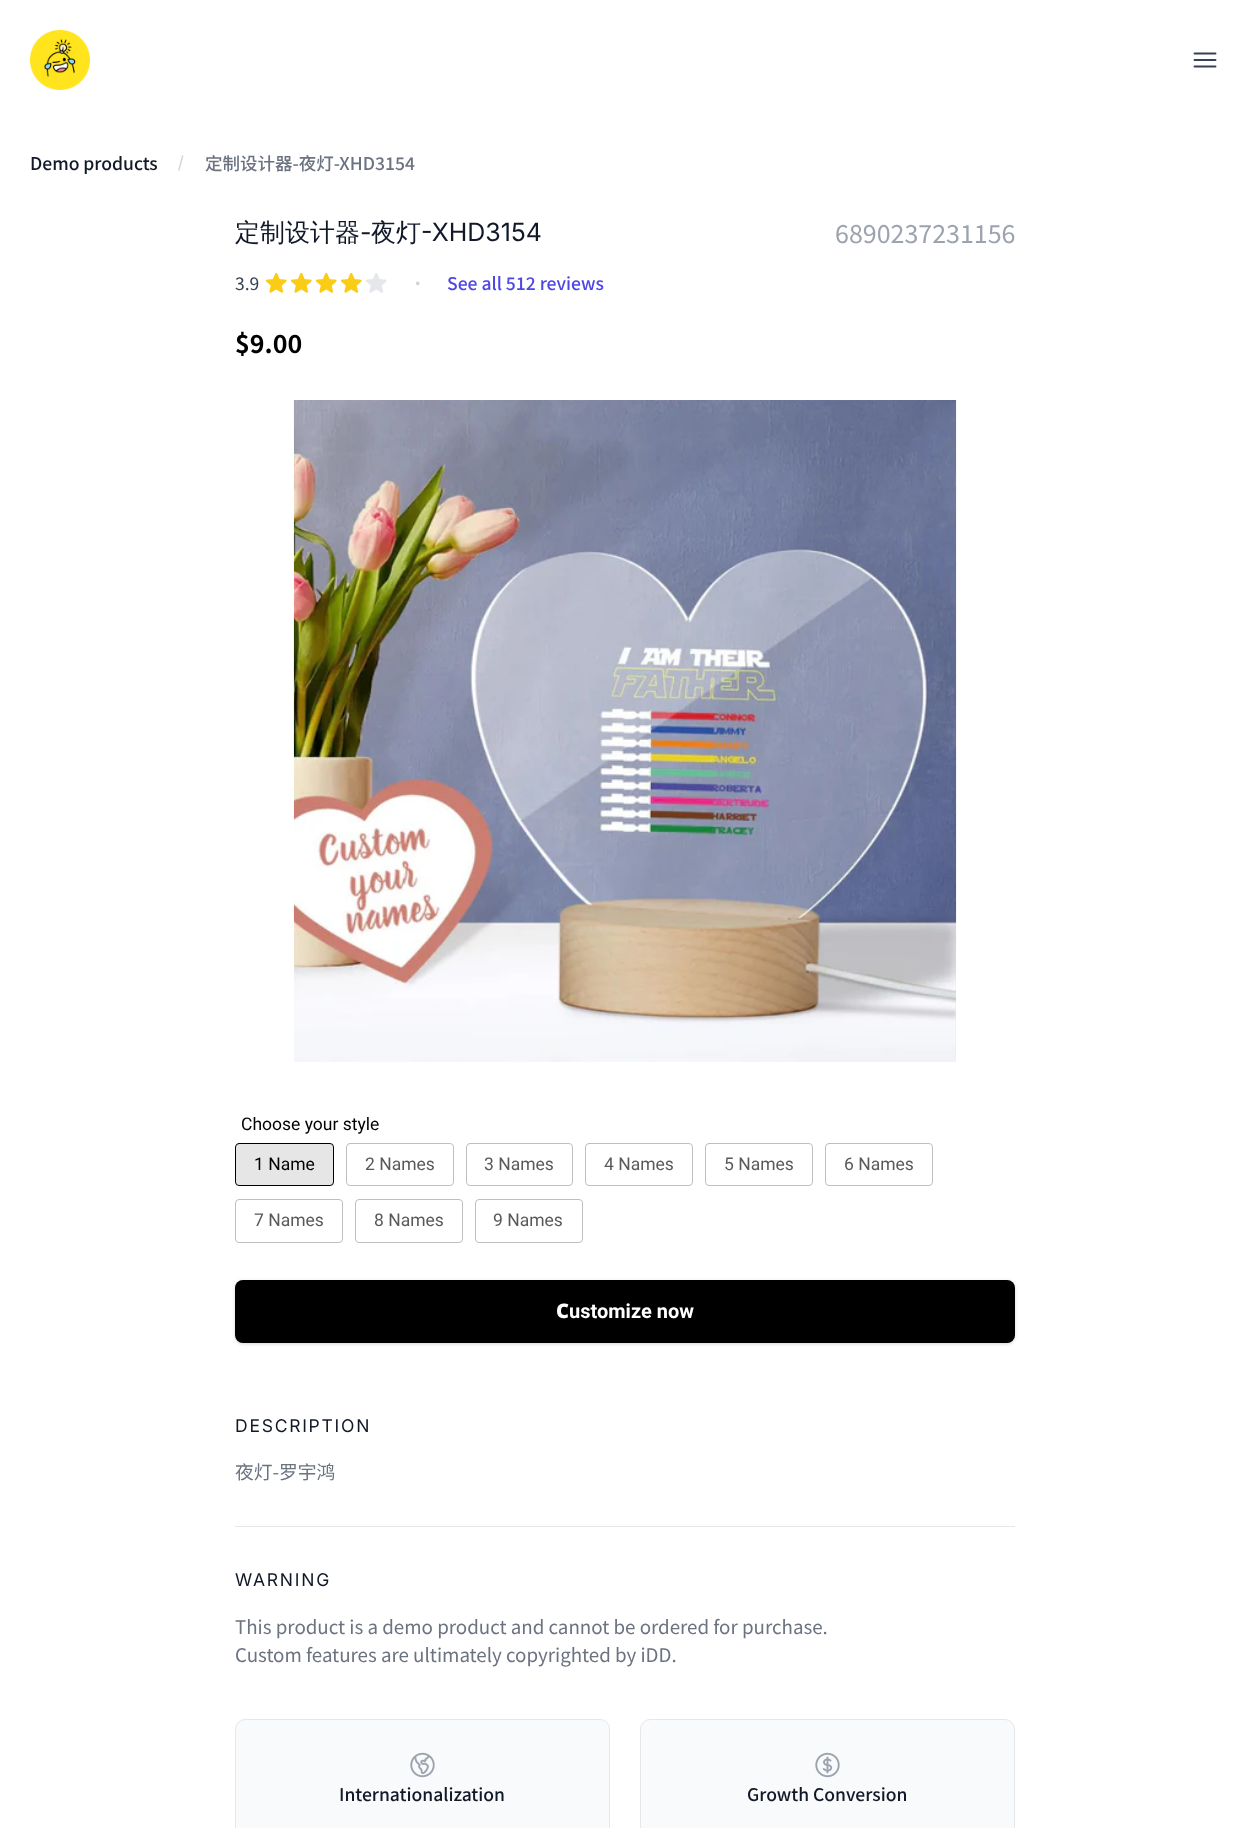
<!DOCTYPE html>
<meta charset="utf-8">
<style>body { margin: 0 } canvas { display: block }</style>
<canvas id="canvas" width="1250" height="1828"></canvas>
<script type="module">
  const canvas = document.getElementById("canvas");
  const g = canvas.getContext("2d");
  g.miterLimit = 4;
  g.fontKerning = "normal";
  function drawText(s, x, y, [font, color]) {
    g.font = font;
    g.fillStyle = color;
    g.fillText(s, x, y);
  }
  function fillBox(x, y, w, h, color) {
    g.fillStyle = color;
    g.fillRect(x, y, w, h);
  }
  function fillRounded(x, y, w, h, r, color) {
    g.fillStyle = color;
    g.beginPath();
    g.roundRect(x, y, w, h, r);
    g.fill();
  }
  async function drawPicture(src, x, y, w, h) {
    const img = new Image();
    img.src = src;
    await img.decode();
    g.drawImage(img, x, y, w, h);
  }

  const s1 = ["500 17.5px Noto Sans SC", "#111827"];
  const s2 = ["500 17.5px Noto Sans SC", "#6B7280"];
  const s3 = ["500 25px WenQuanYi Zen Hei", "#111827"];
  const s4 = ["25px Inter", "#111827"];
  const s5 = ["25px Noto Sans SC", "#9CA3AF"];
  const s6 = ["17.5px Noto Sans SC", "#374151"];
  const s7 = ["17.5px Noto Sans SC", "#D1D5DB"];
  const s8 = ["500 17.5px Noto Sans SC", "#4F46E5"];
  const s9 = ["bold 25px Noto Sans SC", "#000000"];
  const s10 = ["17.5px Roboto", "#000000"];
  const s11 = ["17.5px Roboto", "#595959"];
  const s12 = ["900 20px Noto Sans", "#FFFFFF"];
  const s13 = ["bold 20px Roboto", "#FFFFFF"];
  const s14 = ["17.5px Inter", "#111827"];
  const s15 = ["18.75px Noto Sans SC", "#6B7280"];

  fillBox(0, 0, 1250, 1828, "#FFFFFF");
  await drawPicture("pic1.png", 30, 30, 60, 60);
  g.beginPath();
  g.moveTo(1194.5, 53.5);
  g.lineTo(1215.5, 53.5);
  g.moveTo(1194.5, 60);
  g.lineTo(1215.5, 60);
  g.moveTo(1194.5, 66.5);
  g.lineTo(1215.5, 66.5);
  g.strokeStyle = "#374151";
  g.lineWidth = 1.9;
  g.lineCap = "round";
  g.lineJoin = "round";
  g.stroke();
  drawText("Demo products", 30, 170, s1);
  g.fillStyle = "#D1D5DB";
  g.beginPath();
  g.moveTo(183.5, 155.5);
  g.lineTo(182, 155.5);
  g.lineTo(178, 170.5);
  g.lineTo(179.5, 170.5);
  g.closePath();
  g.fill();
  drawText("定制设计器-夜灯-XHD3154", 205, 170, s2);
  drawText("定制设计器", 235, 241, s3);
  drawText("-", 360, 241, s4);
  drawText("夜灯", 371, 241, s3);
  drawText("-XHD3154", 421, 241, s4);
  drawText("6890237231156", 835, 243, s5);
  drawText("3.9", 235, 290, s6);
  await drawPicture("pic2.png", 265, 272, 22, 21);
  await drawPicture("pic2.png", 290, 272, 22, 21);
  await drawPicture("pic2.png", 315, 272, 22, 21);
  await drawPicture("pic2.png", 340, 272, 22, 21);
  await drawPicture("pic3.png", 366, 273, 21, 20);
  drawText("·", 409, 290, s7);
  drawText("See all 512 reviews", 447, 290, s8);
  drawText("$9.00", 235, 353, s9);
  await drawPicture("pic4.png", 293, 400, 664, 662);
  drawText("Choose your style", 241, 1130, s10);
  g.fillStyle = "#E6E6E6";
  g.beginPath();
  g.roundRect(235.5, 1143.5, 98, 42, 3.5);
  g.fill();
  g.strokeStyle = "#000000";
  g.lineWidth = 1;
  g.lineJoin = "miter";
  g.stroke();
  drawText("1 Name", 254, 1170, s10);
  g.beginPath();
  g.roundRect(346.5, 1143.5, 107, 42, 3.5);
  g.strokeStyle = "#BFBFBF";
  g.stroke();
  drawText("2 Names", 365, 1170, s11);
  g.beginPath();
  g.roundRect(466.5, 1143.5, 106, 42, 3.5);
  g.stroke();
  drawText("3 Names", 484, 1170, s11);
  g.beginPath();
  g.roundRect(585.5, 1143.5, 107, 42, 3.5);
  g.stroke();
  drawText("4 Names", 604, 1170, s11);
  g.beginPath();
  g.roundRect(705.5, 1143.5, 107, 42, 3.5);
  g.stroke();
  drawText("5 Names", 724, 1170, s11);
  g.beginPath();
  g.roundRect(825.5, 1143.5, 107, 42, 3.5);
  g.stroke();
  drawText("6 Names", 844, 1170, s11);
  g.beginPath();
  g.roundRect(235.5, 1199.5, 107, 43, 3.5);
  g.stroke();
  drawText("7 Names", 254, 1226, s11);
  g.beginPath();
  g.roundRect(355.5, 1199.5, 107, 43, 3.5);
  g.stroke();
  drawText("8 Names", 374, 1226, s11);
  g.beginPath();
  g.roundRect(475.5, 1199.5, 107, 43, 3.5);
  g.stroke();
  drawText("9 Names", 493, 1226, s11);
  g.fillStyle = "rgba(0, 0, 0, 0.06)";
  g.filter = "blur(1px)";
  g.beginPath();
  g.roundRect(235, 1281, 780, 63, 8);
  g.fill();
  g.filter = "none";
  g.fillStyle = "rgba(0, 0, 0, 0.1)";
  g.filter = "blur(2px)";
  g.beginPath();
  g.roundRect(235, 1281, 780, 63, 8);
  g.fill();
  g.filter = "none";
  fillRounded(235, 1280, 780, 63, 8, "#000000");
  g.beginPath();
  g.roundRect(235.5, 1280.5, 779, 62, 7.5);
  g.strokeStyle = "rgba(0, 0, 0, 0.12)";
  g.stroke();
  drawText("C", 556, 1318, s12);
  drawText("ustomize now", 569, 1318, s13);
  g.letterSpacing = "1.75px";
  drawText("DESCRIPTION", 235, 1432, s14);
  g.letterSpacing = "0px";
  drawText("夜灯-罗宇鸿", 235, 1479, s15);
  fillBox(235, 1526, 780, 1, "#E5E7EB");
  g.letterSpacing = "1.75px";
  drawText("WARNING", 235, 1586, s14);
  g.letterSpacing = "0px";
  drawText("This product is a demo product and cannot be ordered for purchase.", 235, 1634, s15);
  drawText("Custom features are ultimately copyrighted by iDD.", 235, 1662, s15);
  g.fillStyle = "#F9FAFB";
  g.beginPath();
  g.roundRect(235.5, 1719.5, 374, 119, 9.5);
  g.fill();
  g.strokeStyle = "#E5E7EB";
  g.stroke();
  await drawPicture("pic5.png", 410, 1752, 25, 26);
  drawText("Internationalization", 339, 1801, s1);
  g.fillStyle = "#F9FAFB";
  g.beginPath();
  g.roundRect(640.5, 1719.5, 374, 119, 9.5);
  g.fill();
  g.stroke();
  await drawPicture("pic6.png", 815, 1752, 25, 26);
  drawText("Growth Conversion", 747, 1801, s1);
</script>
